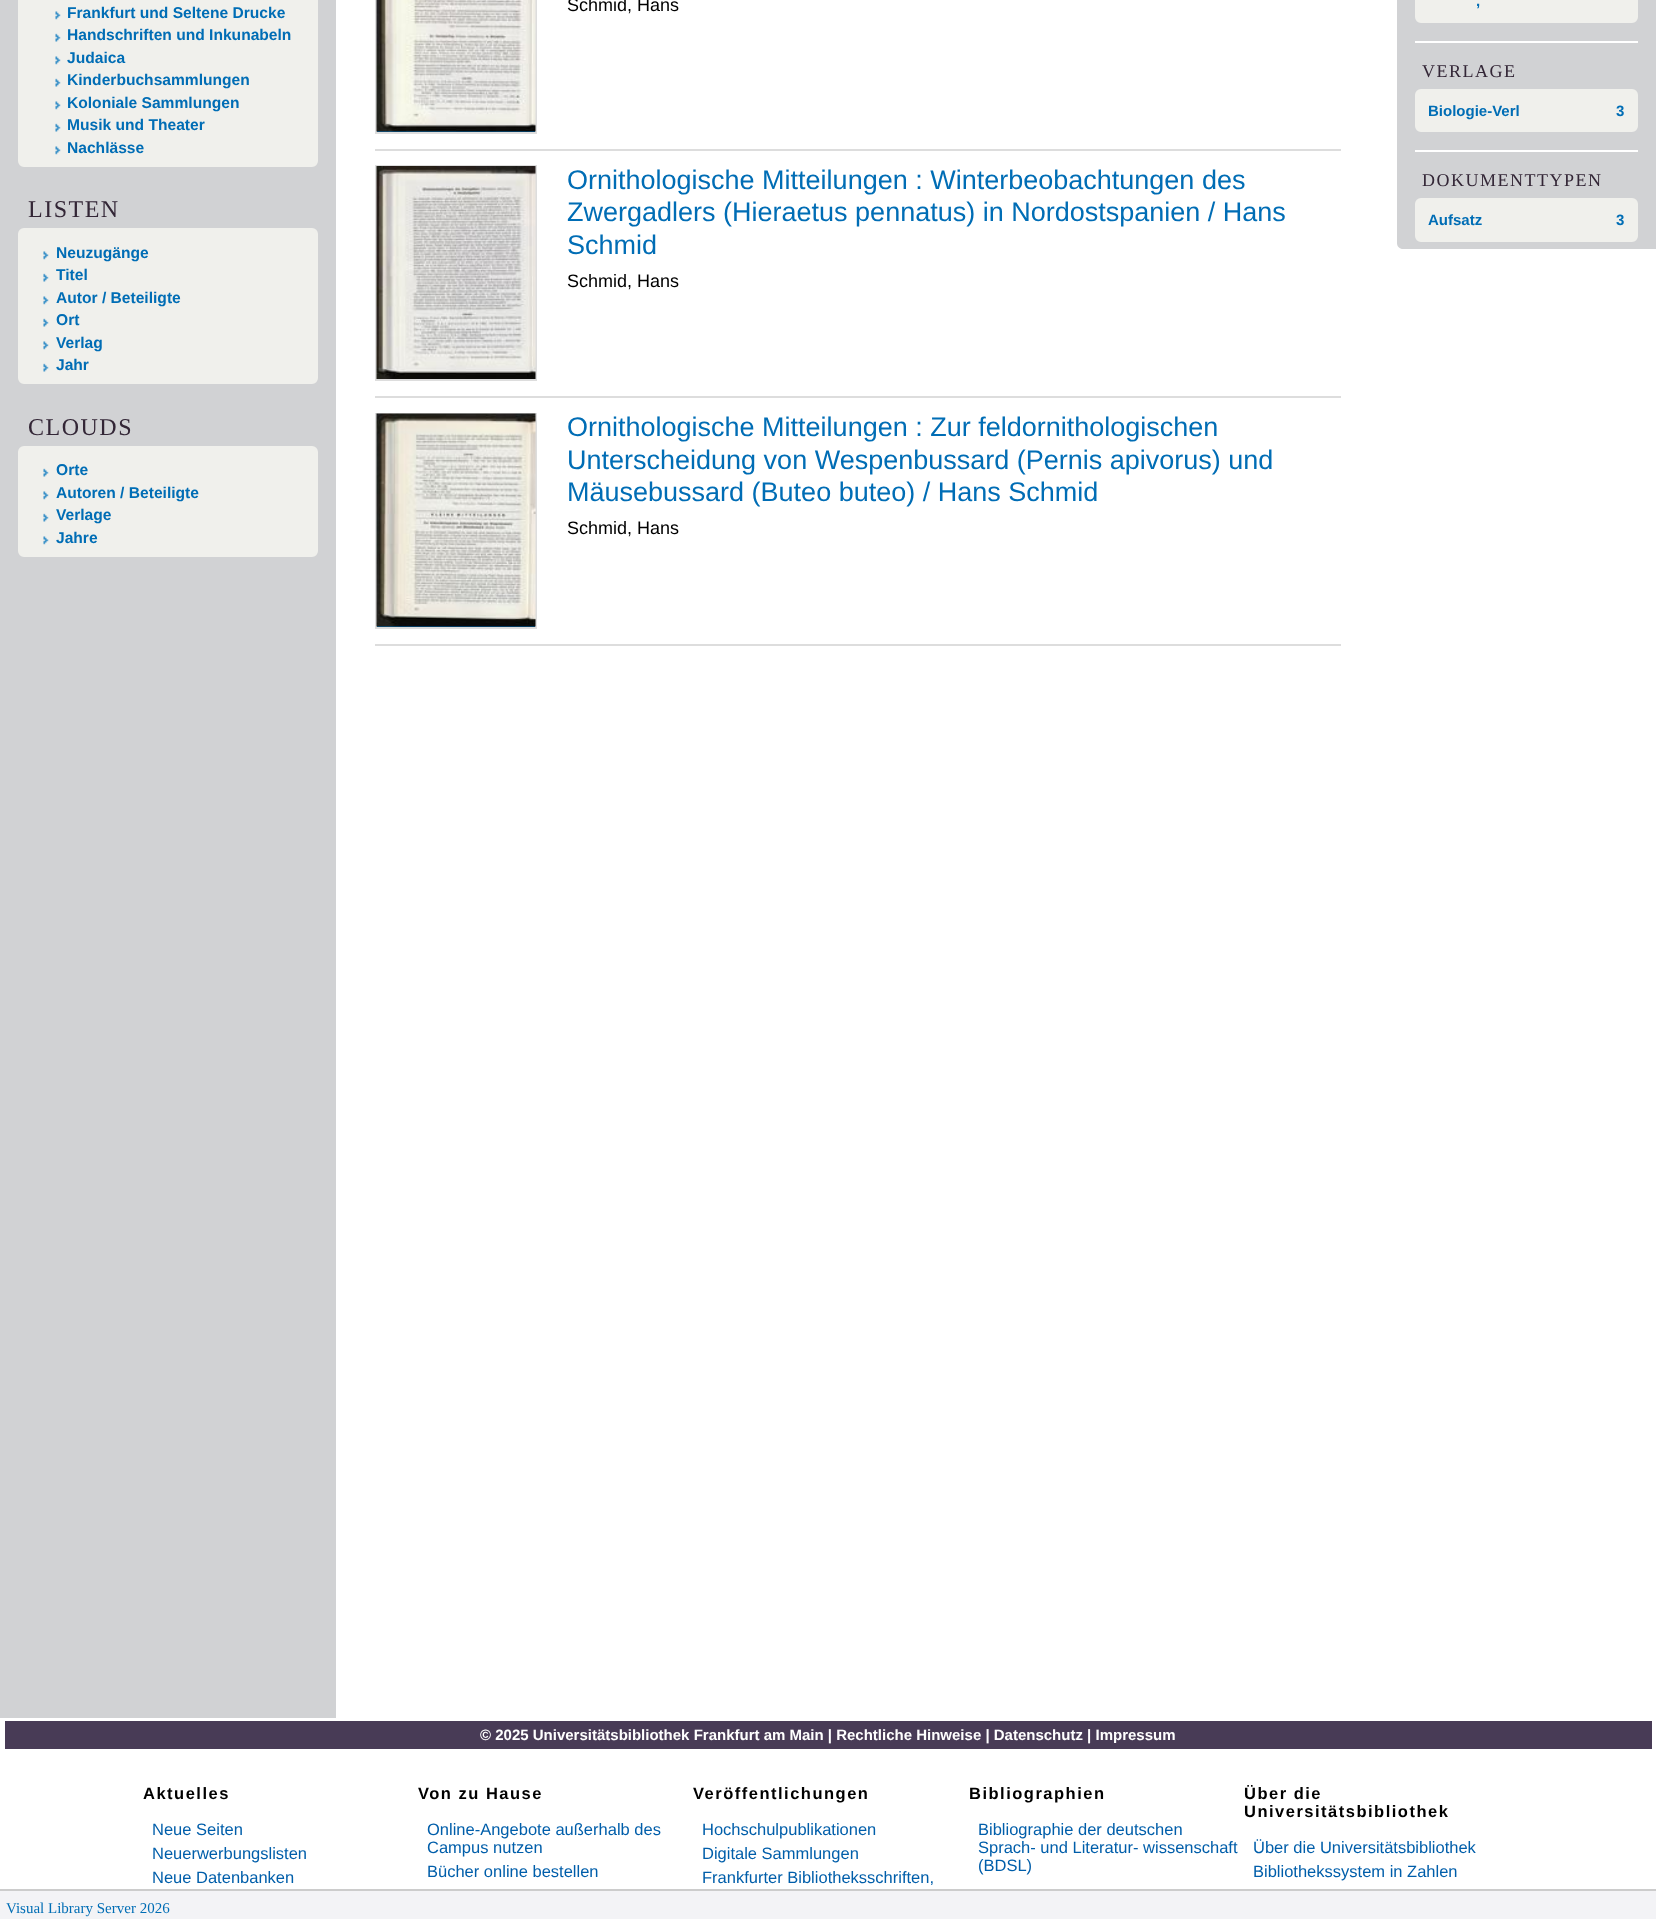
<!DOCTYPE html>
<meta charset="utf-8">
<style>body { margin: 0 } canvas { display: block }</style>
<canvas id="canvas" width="1656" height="1919"></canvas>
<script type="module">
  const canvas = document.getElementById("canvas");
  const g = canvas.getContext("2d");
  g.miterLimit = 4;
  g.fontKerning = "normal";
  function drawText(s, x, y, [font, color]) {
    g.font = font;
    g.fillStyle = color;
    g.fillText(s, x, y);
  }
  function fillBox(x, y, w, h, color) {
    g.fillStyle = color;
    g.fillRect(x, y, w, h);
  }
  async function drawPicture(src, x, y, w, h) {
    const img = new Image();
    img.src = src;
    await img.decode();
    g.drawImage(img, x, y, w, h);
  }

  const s1 = ["bold 15.6px Liberation Sans", "#006DB5"];
  const s2 = ["24px Liberation Serif", "#332636"];
  const s3 = ["18px Liberation Sans", "#000000"];
  const s4 = ["27px Liberation Sans", "#006DB5"];
  const s5 = ["bold 15px Liberation Sans", "#006DB5"];
  const s6 = ["18px Liberation Serif", "#332636"];
  const s7 = ["bold 15px Liberation Sans", "#FFFFFF"];
  const s8 = ["bold 16.5px Liberation Sans", "#000000"];
  const s9 = ["16.5px Liberation Sans", "#005EAA"];
  const s10 = ["15px Liberation Serif", "#006DB5"];

  fillBox(0, 0, 1656, 1919, "#FFFFFF");
  fillBox(0, 0, 336, 1718, "#D1D2D4");
  g.fillStyle = "#F0F0EC";
  g.beginPath();
  g.roundRect(19, -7, 298, 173, 5);
  g.fill();
  g.strokeStyle = "#F0F0EC";
  g.lineWidth = 2;
  g.stroke();
  await drawPicture("pic1.png", 55, 11, 6, 9);
  drawText("Frankfurt und Seltene Drucke", 67, 18, s1);
  await drawPicture("pic2.png", 55, 33, 6, 9);
  drawText("Handschriften und Inkunabeln", 67, 40, s1);
  await drawPicture("pic1.png", 55, 56, 6, 9);
  drawText("Judaica", 67, 63, s1);
  await drawPicture("pic2.png", 55, 78, 6, 9);
  drawText("Kinderbuchsammlungen", 67, 85, s1);
  await drawPicture("pic1.png", 55, 101, 6, 9);
  drawText("Koloniale Sammlungen", 67, 108, s1);
  await drawPicture("pic2.png", 55, 123, 6, 9);
  drawText("Musik und Theater", 67, 130, s1);
  await drawPicture("pic1.png", 55, 146, 6, 9);
  drawText("Nachlässe", 67, 153, s1);
  g.letterSpacing = "1.5px";
  drawText("LISTEN", 28, 217, s2);
  g.fillStyle = "#F0F0EC";
  g.beginPath();
  g.roundRect(19, 229, 298, 154, 5);
  g.fill();
  g.stroke();
  await drawPicture("pic1.png", 43, 251, 6, 9);
  g.letterSpacing = "0px";
  drawText("Neuzugänge", 56, 258, s1);
  await drawPicture("pic2.png", 43, 273, 6, 9);
  drawText("Titel", 56, 280, s1);
  await drawPicture("pic1.png", 43, 296, 6, 9);
  drawText("Autor / Beteiligte", 56, 303, s1);
  await drawPicture("pic2.png", 43, 318, 6, 9);
  drawText("Ort", 56, 325, s1);
  await drawPicture("pic1.png", 43, 341, 6, 9);
  drawText("Verlag", 56, 348, s1);
  await drawPicture("pic2.png", 43, 363, 6, 9);
  drawText("Jahr", 56, 370, s1);
  g.letterSpacing = "1.5px";
  drawText("CLOUDS", 28, 435, s2);
  g.fillStyle = "#F0F0EC";
  g.beginPath();
  g.roundRect(19, 447, 298, 109, 5);
  g.fill();
  g.stroke();
  await drawPicture("pic2.png", 43, 468, 6, 9);
  g.letterSpacing = "0px";
  drawText("Orte", 56, 475, s1);
  await drawPicture("pic1.png", 43, 491, 6, 9);
  drawText("Autoren / Beteiligte", 56, 498, s1);
  await drawPicture("pic2.png", 43, 513, 6, 9);
  drawText("Verlage", 56, 520, s1);
  await drawPicture("pic1.png", 43, 536, 6, 9);
  drawText("Jahre", 56, 543, s1);
  fillBox(377, 131, 158, 1, "#006DB5");
  g.strokeStyle = "#DDDDDD";
  g.strokeRect(376, -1, 160, 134);
  await drawPicture("pic3.png", 376, 0, 160, 132);
  drawText("Schmid, Hans", 567, 11, s3);
  fillBox(375, 149, 966, 2, "#DDDDDD");
  g.strokeRect(376, 166, 160, 214);
  await drawPicture("pic4.png", 376, 166, 160, 213);
  drawText("Ornithologische Mitteilungen : Winterbeobachtungen des", 567, 189, s4);
  drawText("Zwergadlers (Hieraetus pennatus) in Nordostspanien / Hans", 567, 221, s4);
  drawText("Schmid", 567, 254, s4);
  drawText("Schmid, Hans", 567, 287, s3);
  fillBox(375, 396, 966, 2, "#DDDDDD");
  fillBox(375, 644, 966, 2, "#DDDDDD");
  fillBox(377, 626, 158, 1, "#006DB5");
  g.strokeRect(376, 414, 160, 214);
  await drawPicture("pic5.png", 376, 413, 160, 214);
  drawText("Ornithologische Mitteilungen : Zur feldornithologischen", 567, 436, s4);
  drawText("Unterscheidung von Wespenbussard (Pernis apivorus) und", 567, 469, s4);
  drawText("Mäusebussard (Buteo buteo) / Hans Schmid", 567, 501, s4);
  drawText("Schmid, Hans", 567, 534, s3);
  g.fillStyle = "#D1D2D4";
  g.beginPath();
  g.moveTo(1397, -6);
  g.lineTo(1656, -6);
  g.lineTo(1656, 249);
  g.lineTo(1403, 249);
  g.bezierCurveTo(1399.5, 249, 1397, 246.5, 1397, 243);
  g.closePath();
  g.fill();
  g.fillStyle = "#F0F0EC";
  g.beginPath();
  g.roundRect(1419, -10, 215, 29, 2);
  g.fill();
  g.strokeStyle = "#F0F0EC";
  g.lineWidth = 8;
  g.stroke();
  drawText(",", 1476, 6, s5);
  fillBox(1415, 41, 223, 2, "#FFFFFF");
  g.letterSpacing = "1.5px";
  drawText("VERLAGE", 1422, 77, s6);
  g.fillStyle = "#F0F0EC";
  g.beginPath();
  g.roundRect(1419, 93, 215, 35, 2);
  g.fill();
  g.stroke();
  g.letterSpacing = "0px";
  drawText("Biologie-Verl", 1428, 116, s5);
  drawText("3", 1616, 116, s5);
  fillBox(1415, 150, 223, 2, "#FFFFFF");
  g.letterSpacing = "1.5px";
  drawText("DOKUMENTTYPEN", 1422, 186, s6);
  g.fillStyle = "#F0F0EC";
  g.beginPath();
  g.roundRect(1419, 202, 215, 36, 2);
  g.fill();
  g.stroke();
  g.letterSpacing = "0px";
  drawText("Aufsatz", 1428, 225, s5);
  drawText("3", 1616, 225, s5);
  fillBox(5, 1721, 1647, 28, "#483B56");
  drawText("© 2025 Universitätsbibliothek Frankfurt am Main | Rechtliche Hinweise | Datenschutz | Impressum", 480, 1740, s7);
  g.letterSpacing = "1.5px";
  drawText("Aktuelles", 143, 1799, s8);
  g.letterSpacing = "0px";
  drawText("Neue Seiten", 152, 1835, s9);
  drawText("Neuerwerbungslisten", 152, 1859, s9);
  drawText("Neue Datenbanken", 152, 1883, s9);
  g.letterSpacing = "1.5px";
  drawText("Von zu Hause", 418, 1799, s8);
  g.letterSpacing = "0px";
  drawText("Online-Angebote außerhalb des", 427, 1835, s9);
  drawText("Campus nutzen", 427, 1853, s9);
  drawText("Bücher online bestellen", 427, 1877, s9);
  g.letterSpacing = "1.5px";
  drawText("Veröffentlichungen", 693, 1799, s8);
  g.letterSpacing = "0px";
  drawText("Hochschulpublikationen", 702, 1835, s9);
  drawText("Digitale Sammlungen", 702, 1859, s9);
  drawText("Frankfurter Bibliotheksschriften,", 702, 1883, s9);
  g.letterSpacing = "1.5px";
  drawText("Bibliographien", 969, 1799, s8);
  g.letterSpacing = "0px";
  drawText("Bibliographie der deutschen", 978, 1835, s9);
  drawText("Sprach- und Literatur- wissenschaft", 978, 1853, s9);
  drawText("(BDSL)", 978, 1871, s9);
  g.letterSpacing = "1.5px";
  drawText("Über die", 1244, 1799, s8);
  drawText("Universitätsbibliothek", 1244, 1817, s8);
  g.letterSpacing = "0px";
  drawText("Über die Universitätsbibliothek", 1253, 1853, s9);
  drawText("Bibliothekssystem in Zahlen", 1253, 1877, s9);
  fillBox(0, 1891, 1656, 28, "#F3F3F6");
  fillBox(0, 1889, 1656, 2, "#CCCCCC");
  drawText("Visual Library Server 2026", 6, 1913, s10);
</script>
